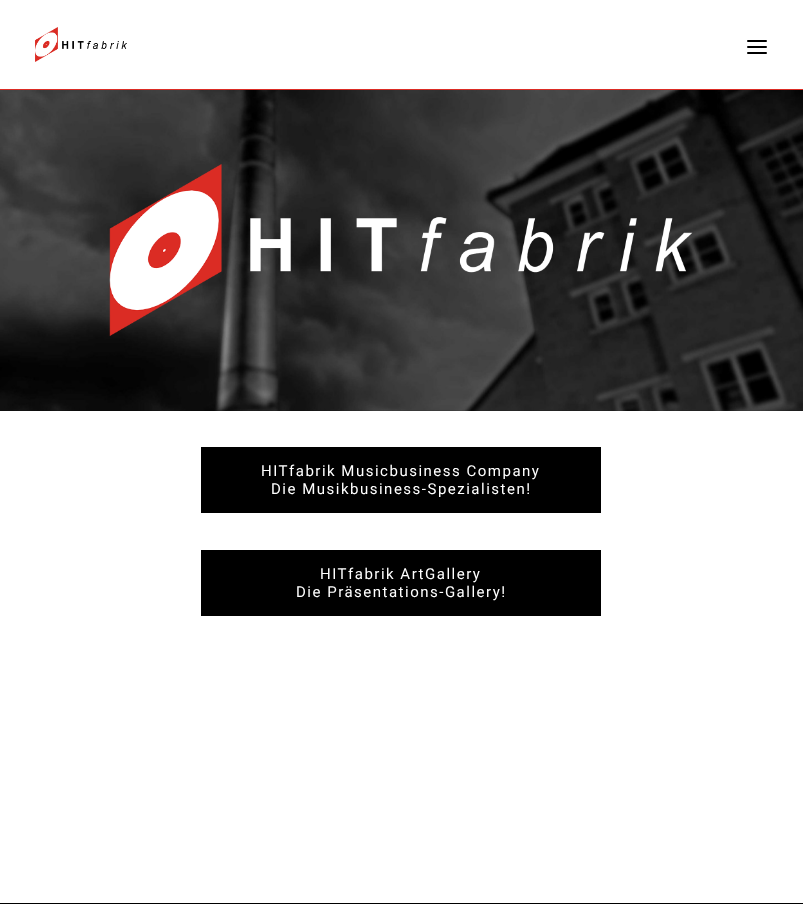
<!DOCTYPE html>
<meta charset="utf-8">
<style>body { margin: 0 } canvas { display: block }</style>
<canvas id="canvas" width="803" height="904"></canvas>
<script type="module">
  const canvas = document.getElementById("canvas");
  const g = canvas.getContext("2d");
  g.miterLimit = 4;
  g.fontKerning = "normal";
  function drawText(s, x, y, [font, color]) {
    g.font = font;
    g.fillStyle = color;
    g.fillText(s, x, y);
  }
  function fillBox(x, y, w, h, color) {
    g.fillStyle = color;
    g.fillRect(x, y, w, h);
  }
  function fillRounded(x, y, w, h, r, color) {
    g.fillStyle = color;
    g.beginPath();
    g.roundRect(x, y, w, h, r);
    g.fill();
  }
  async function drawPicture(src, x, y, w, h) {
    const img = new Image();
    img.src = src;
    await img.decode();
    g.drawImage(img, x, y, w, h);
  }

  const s1 = ["15px Roboto", "#FFFFFF"];

  fillBox(0, 0, 803, 904, "#000000");
  fillBox(0, 0, 803, 89, "#FFFFFF");
  fillBox(0, 89, 803, 1, "#DB2C24");
  await drawPicture("pic1.png", 35, 27, 92, 35);
  fillRounded(747, 46, 20, 2, 1, "#000000");
  fillRounded(747, 40, 20, 2, 1, "#000000");
  fillRounded(747, 52, 20, 2, 1, "#000000");
  await drawPicture("pic2.png", 0, 90, 803, 321);
  await drawPicture("pic3.png", 109, 164, 584, 172);
  fillBox(0, 411, 803, 492, "#FFFFFF");
  fillBox(201, 447, 400, 66, "#000000");
  g.letterSpacing = "1.5px";
  drawText("HITfabrik Musicbusiness Company", 261, 476, s1);
  drawText("Die Musikbusiness-Spezialisten!", 271, 494, s1);
  fillBox(201, 550, 400, 66, "#000000");
  drawText("HITfabrik ArtGallery", 320, 579, s1);
  drawText("Die Präsentations-Gallery!", 296, 597, s1);
</script>
